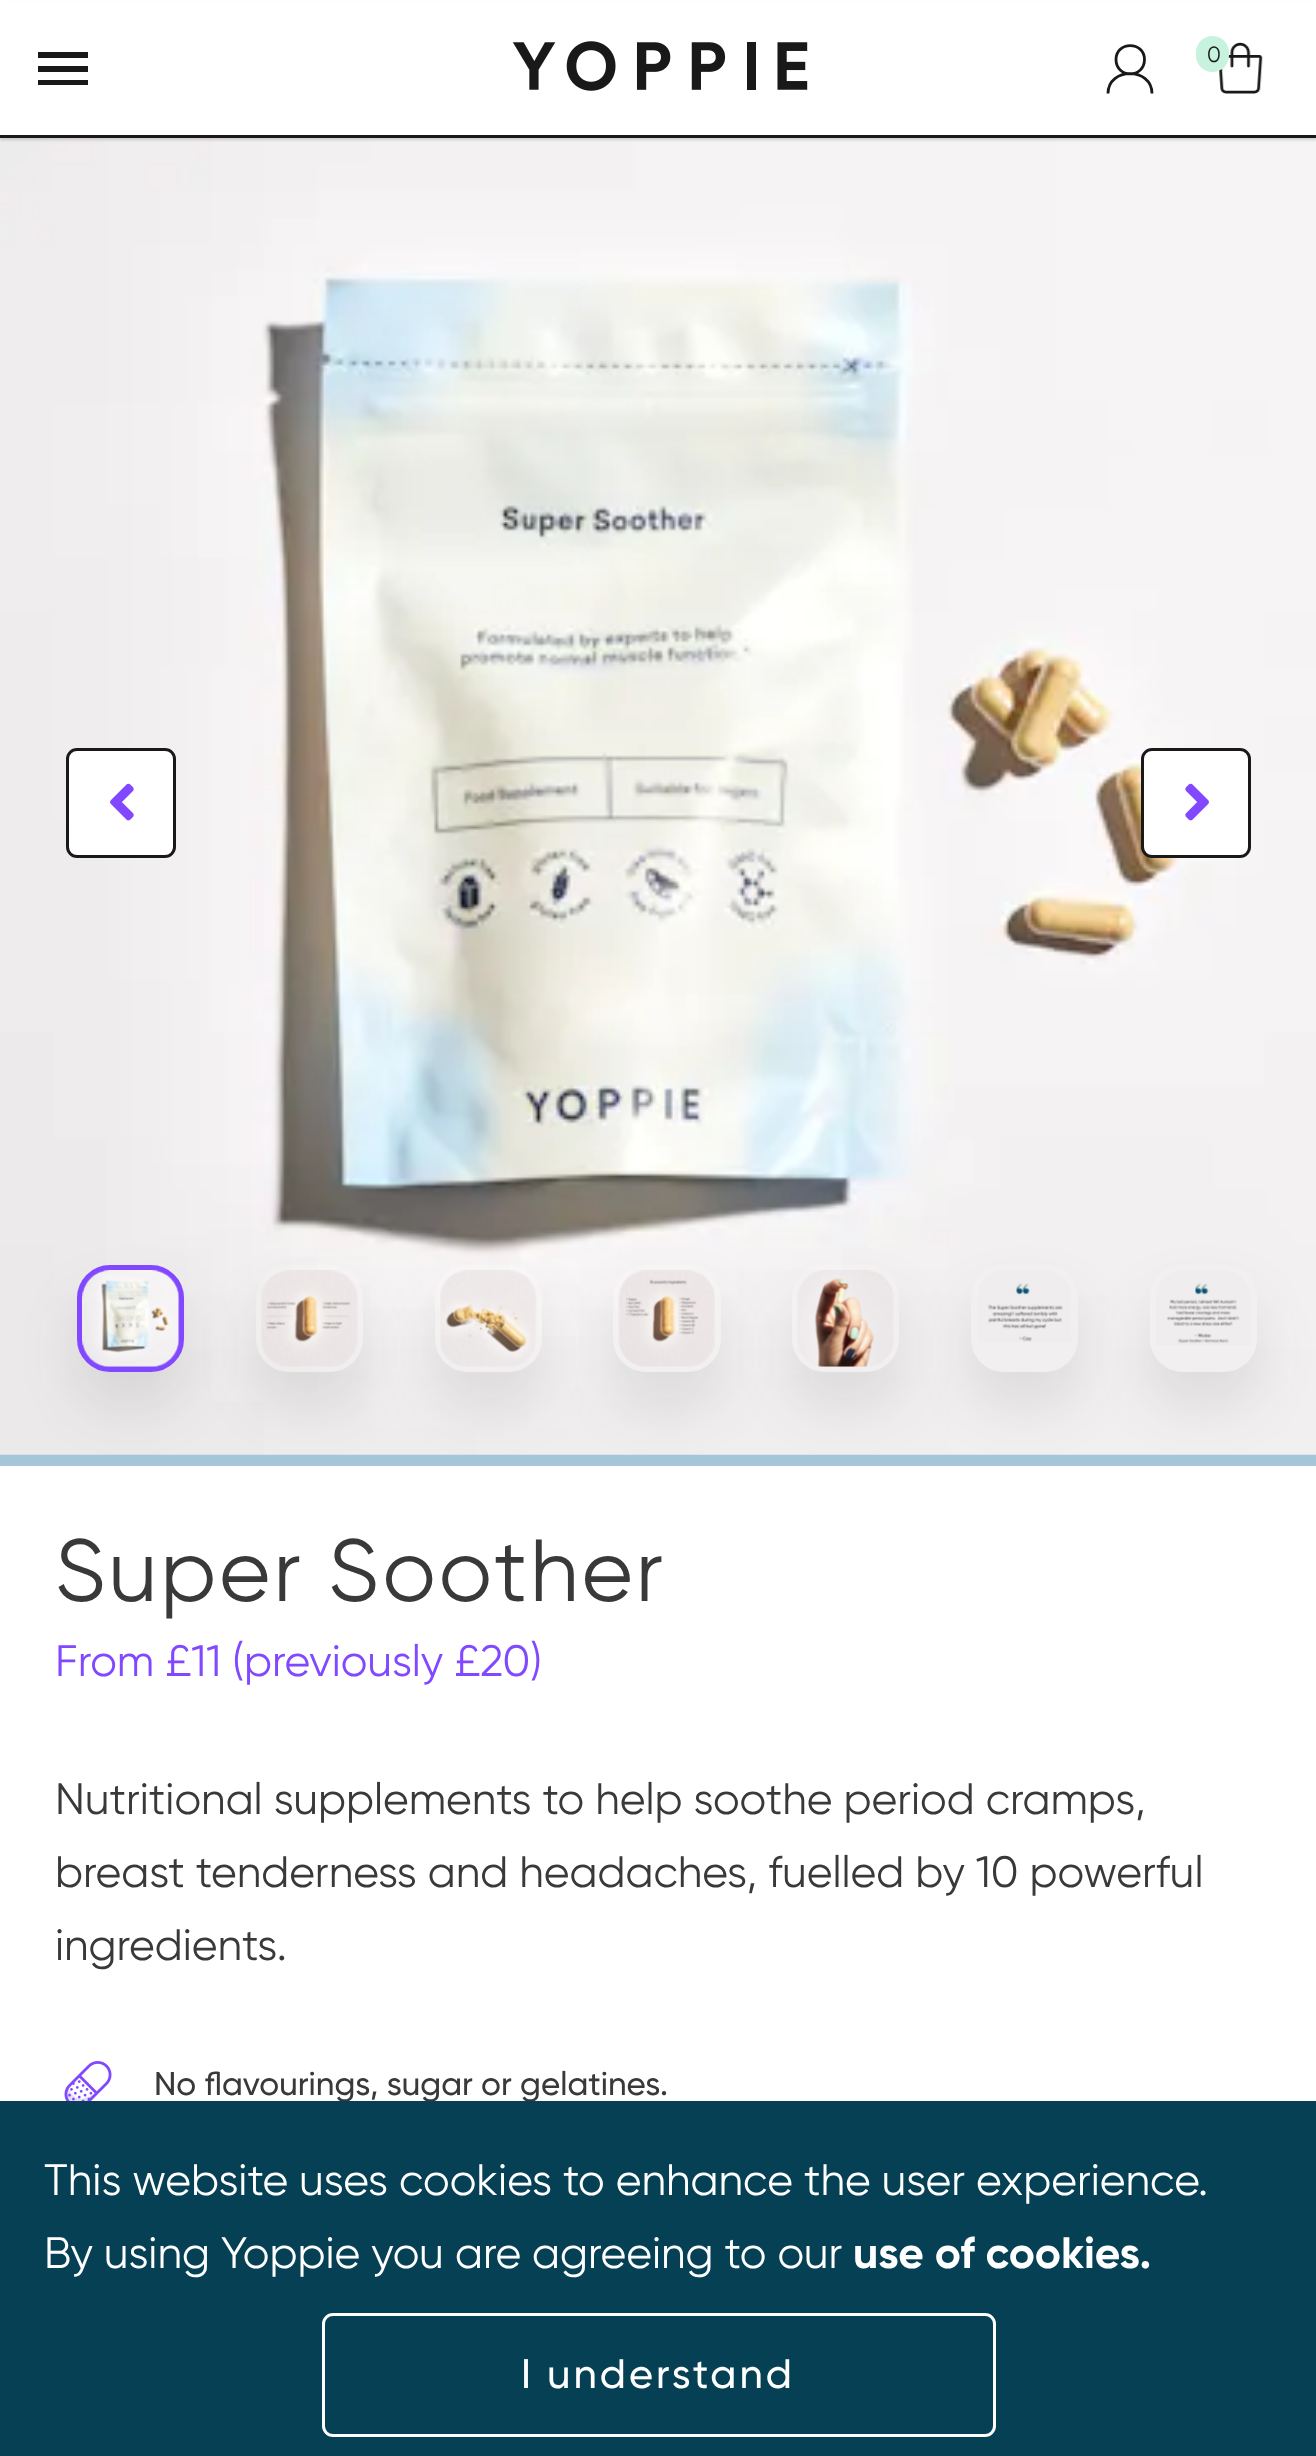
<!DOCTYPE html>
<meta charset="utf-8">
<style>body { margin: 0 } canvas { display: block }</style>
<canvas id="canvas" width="1316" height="2456"></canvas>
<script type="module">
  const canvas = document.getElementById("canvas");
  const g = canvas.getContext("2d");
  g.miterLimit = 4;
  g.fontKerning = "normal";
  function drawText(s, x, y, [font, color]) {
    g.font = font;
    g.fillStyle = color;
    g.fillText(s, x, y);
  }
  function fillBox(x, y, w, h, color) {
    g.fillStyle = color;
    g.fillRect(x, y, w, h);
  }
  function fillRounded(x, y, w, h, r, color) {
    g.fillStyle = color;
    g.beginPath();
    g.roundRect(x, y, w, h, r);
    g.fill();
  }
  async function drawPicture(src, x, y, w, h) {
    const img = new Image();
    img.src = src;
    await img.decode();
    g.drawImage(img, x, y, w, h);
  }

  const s1 = ["22px Gilroy", "#191919"];
  const s2 = ["88px Gilroy", "#393939"];
  const s3 = ["44px Gilroy", "#8148FF"];
  const s4 = ["44px Gilroy", "#393939"];
  const s5 = ["500 33px Gilroy", "#393939"];
  const s6 = ["44px Gilroy", "#FFFFFF"];
  const s7 = ["bold 44px Gilroy", "#FFFFFF"];
  const s8 = ["500 41.25px Gilroy", "#FFFFFF"];

  fillBox(0, 0, 1316, 2456, "#FFFFFF");
  fillBox(0, 1454, 1316, 12, "#A5C6D8");
  await drawPicture("pic4.png", 0, 1454, 1, 1);
  await drawPicture("pic3.png", 0, 138, 1316, 1317);
  g.fillStyle = "rgba(0, 0, 0, 0.16)";
  g.filter = "blur(1.5px)";
  g.beginPath();
  g.rect(0, 3, 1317, 137);
  g.fill();
  g.filter = "none";
  fillBox(0, 1, 1316, 134, "#FFFFFF");
  fillBox(0, 135, 1316, 3, "#191919");
  g.beginPath();
  g.moveTo(38, 85);
  g.lineTo(88, 85);
  g.lineTo(88, 80);
  g.lineTo(38, 80);
  g.closePath();
  g.moveTo(38, 72);
  g.lineTo(88, 72);
  g.lineTo(88, 66);
  g.lineTo(38, 66);
  g.closePath();
  g.moveTo(38, 52);
  g.lineTo(38, 58);
  g.lineTo(88, 58);
  g.lineTo(88, 52);
  g.closePath();
  g.fill();
  await drawPicture("pic1.png", 512, 41, 296, 50);
  g.beginPath();
  g.moveTo(1144.5, 59.5);
  g.bezierCurveTo(1144.5, 78.5, 1116, 78.5, 1116, 59.5);
  g.bezierCurveTo(1116, 41, 1144.5, 41, 1144.5, 59.5);
  g.closePath();
  g.moveTo(1152, 93.5);
  g.bezierCurveTo(1152, 67, 1108, 67, 1108, 93.5);
  g.strokeStyle = "#191919";
  g.lineWidth = 2.8;
  g.stroke();
  await drawPicture("pic2.png", 1219, 42, 44, 52);
  fillRounded(1196, 36, 33, 36, 16.5, "#C6F2DE");
  drawText("0", 1207, 62, s1);
  g.fillStyle = "#FFFFFF";
  g.beginPath();
  g.roundRect(67.5, 749.5, 107, 107, 9.5);
  g.fill();
  g.lineWidth = 3;
  g.stroke();
  await drawPicture("pic5.png", 110, 783, 24, 38);
  g.beginPath();
  g.roundRect(1142.5, 749.5, 107, 107, 9.5);
  g.fill();
  g.stroke();
  await drawPicture("pic6.png", 1185, 783, 24, 38);
  g.fillStyle = "rgba(52, 52, 52, 0.11)";
  g.filter = "blur(27.5px)";
  g.beginPath();
  g.roundRect(77, 1298, 107, 107, 33);
  g.fill();
  g.filter = "none";
  g.beginPath();
  g.roundRect(80, 1268, 101, 101, 30);
  g.strokeStyle = "#8148FF";
  g.lineWidth = 6;
  g.stroke();
  await drawPicture("pic7.png", 82, 1270, 98, 97);
  g.save();
  g.beginPath();
  g.moveTo(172, 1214);
  g.lineTo(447, 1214);
  g.lineTo(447, 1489);
  g.lineTo(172, 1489);
  g.closePath();
  g.moveTo(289, 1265);
  g.lineTo(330, 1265);
  g.bezierCurveTo(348, 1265, 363, 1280, 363, 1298);
  g.lineTo(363, 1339);
  g.bezierCurveTo(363, 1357, 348, 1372, 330, 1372);
  g.lineTo(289, 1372);
  g.bezierCurveTo(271, 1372, 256, 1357, 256, 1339);
  g.lineTo(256, 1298);
  g.bezierCurveTo(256, 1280, 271, 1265, 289, 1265);
  g.closePath();
  g.clip("evenodd");
  g.filter = "blur(27.5px)";
  g.beginPath();
  g.roundRect(256, 1298, 107, 107, 33);
  g.fill();
  g.filter = "none";
  g.restore();
  await drawPicture("pic8.png", 261, 1270, 97, 97);
  g.save();
  g.beginPath();
  g.moveTo(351, 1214);
  g.lineTo(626, 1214);
  g.lineTo(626, 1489);
  g.lineTo(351, 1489);
  g.closePath();
  g.moveTo(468, 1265);
  g.lineTo(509, 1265);
  g.bezierCurveTo(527, 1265, 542, 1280, 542, 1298);
  g.lineTo(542, 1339);
  g.bezierCurveTo(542, 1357, 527, 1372, 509, 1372);
  g.lineTo(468, 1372);
  g.bezierCurveTo(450, 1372, 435, 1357, 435, 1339);
  g.lineTo(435, 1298);
  g.bezierCurveTo(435, 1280, 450, 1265, 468, 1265);
  g.closePath();
  g.clip("evenodd");
  g.filter = "blur(27.5px)";
  g.beginPath();
  g.roundRect(435, 1298, 107, 107, 33);
  g.fill();
  g.filter = "none";
  g.restore();
  await drawPicture("pic9.png", 440, 1270, 97, 97);
  g.save();
  g.beginPath();
  g.moveTo(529, 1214);
  g.lineTo(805, 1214);
  g.lineTo(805, 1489);
  g.lineTo(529, 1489);
  g.closePath();
  g.moveTo(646, 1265);
  g.lineTo(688, 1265);
  g.bezierCurveTo(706, 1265, 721, 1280, 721, 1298);
  g.lineTo(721, 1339);
  g.bezierCurveTo(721, 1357, 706, 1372, 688, 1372);
  g.lineTo(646, 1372);
  g.bezierCurveTo(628, 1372, 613, 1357, 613, 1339);
  g.lineTo(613, 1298);
  g.bezierCurveTo(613, 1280, 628, 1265, 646, 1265);
  g.closePath();
  g.clip("evenodd");
  g.filter = "blur(27.5px)";
  g.beginPath();
  g.roundRect(613, 1298, 108, 107, 33);
  g.fill();
  g.filter = "none";
  g.restore();
  await drawPicture("pic10.png", 618, 1270, 97, 97);
  g.save();
  g.beginPath();
  g.moveTo(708, 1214);
  g.lineTo(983, 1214);
  g.lineTo(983, 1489);
  g.lineTo(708, 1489);
  g.closePath();
  g.moveTo(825, 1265);
  g.lineTo(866, 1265);
  g.bezierCurveTo(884, 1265, 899, 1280, 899, 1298);
  g.lineTo(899, 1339);
  g.bezierCurveTo(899, 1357, 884, 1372, 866, 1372);
  g.lineTo(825, 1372);
  g.bezierCurveTo(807, 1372, 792, 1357, 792, 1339);
  g.lineTo(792, 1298);
  g.bezierCurveTo(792, 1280, 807, 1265, 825, 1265);
  g.closePath();
  g.clip("evenodd");
  g.filter = "blur(27.5px)";
  g.beginPath();
  g.roundRect(792, 1298, 107, 107, 33);
  g.fill();
  g.filter = "none";
  g.restore();
  await drawPicture("pic11.png", 797, 1270, 97, 97);
  g.save();
  g.beginPath();
  g.moveTo(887, 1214);
  g.lineTo(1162, 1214);
  g.lineTo(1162, 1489);
  g.lineTo(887, 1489);
  g.closePath();
  g.moveTo(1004, 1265);
  g.lineTo(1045, 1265);
  g.bezierCurveTo(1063, 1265, 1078, 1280, 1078, 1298);
  g.lineTo(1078, 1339);
  g.bezierCurveTo(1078, 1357, 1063, 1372, 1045, 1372);
  g.lineTo(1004, 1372);
  g.bezierCurveTo(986, 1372, 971, 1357, 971, 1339);
  g.lineTo(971, 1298);
  g.bezierCurveTo(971, 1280, 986, 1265, 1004, 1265);
  g.closePath();
  g.clip("evenodd");
  g.filter = "blur(27.5px)";
  g.beginPath();
  g.roundRect(971, 1298, 107, 107, 33);
  g.fill();
  g.filter = "none";
  g.restore();
  await drawPicture("pic12.png", 978, 1270, 93, 72);
  g.save();
  g.beginPath();
  g.moveTo(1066, 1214);
  g.lineTo(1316, 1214);
  g.lineTo(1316, 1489);
  g.lineTo(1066, 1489);
  g.closePath();
  g.moveTo(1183, 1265);
  g.lineTo(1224, 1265);
  g.bezierCurveTo(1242, 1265, 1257, 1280, 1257, 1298);
  g.lineTo(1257, 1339);
  g.bezierCurveTo(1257, 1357, 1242, 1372, 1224, 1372);
  g.lineTo(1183, 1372);
  g.bezierCurveTo(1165, 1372, 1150, 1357, 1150, 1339);
  g.lineTo(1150, 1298);
  g.bezierCurveTo(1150, 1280, 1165, 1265, 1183, 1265);
  g.closePath();
  g.clip("evenodd");
  g.filter = "blur(27.5px)";
  g.beginPath();
  g.roundRect(1150, 1298, 107, 107, 33);
  g.fill();
  g.filter = "none";
  g.restore();
  await drawPicture("pic13.png", 1156, 1270, 94, 76);
  g.letterSpacing = "2.75px";
  drawText("Super Soother", 55, 1601, s2);
  g.letterSpacing = "0px";
  drawText("From £11 (previously £20)", 55, 1676, s3);
  drawText("Nutritional supplements to help soothe period cramps,", 55, 1814, s4);
  drawText("breast tenderness and headaches, fuelled by 10 powerful", 55, 1887, s4);
  drawText("ingredients.", 55, 1960, s4);
  await drawPicture("pic14.png", 64, 2061, 48, 40);
  drawText("No flavourings, sugar or gelatines.", 154, 2095, s5);
  fillBox(0, 2101, 1316, 355, "#054054");
  drawText("This website uses cookies to enhance the user experience.", 44, 2195, s6);
  drawText("By using Yoppie you are agreeing to our", 44, 2268, s6);
  drawText("use of cookies.", 853, 2268, s7);
  g.beginPath();
  g.roundRect(323.5, 2314.5, 671, 121, 9.5);
  g.strokeStyle = "#FFFFFF";
  g.lineWidth = 3;
  g.stroke();
  g.letterSpacing = "3px";
  drawText("I understand", 521, 2388, s8);
</script>
